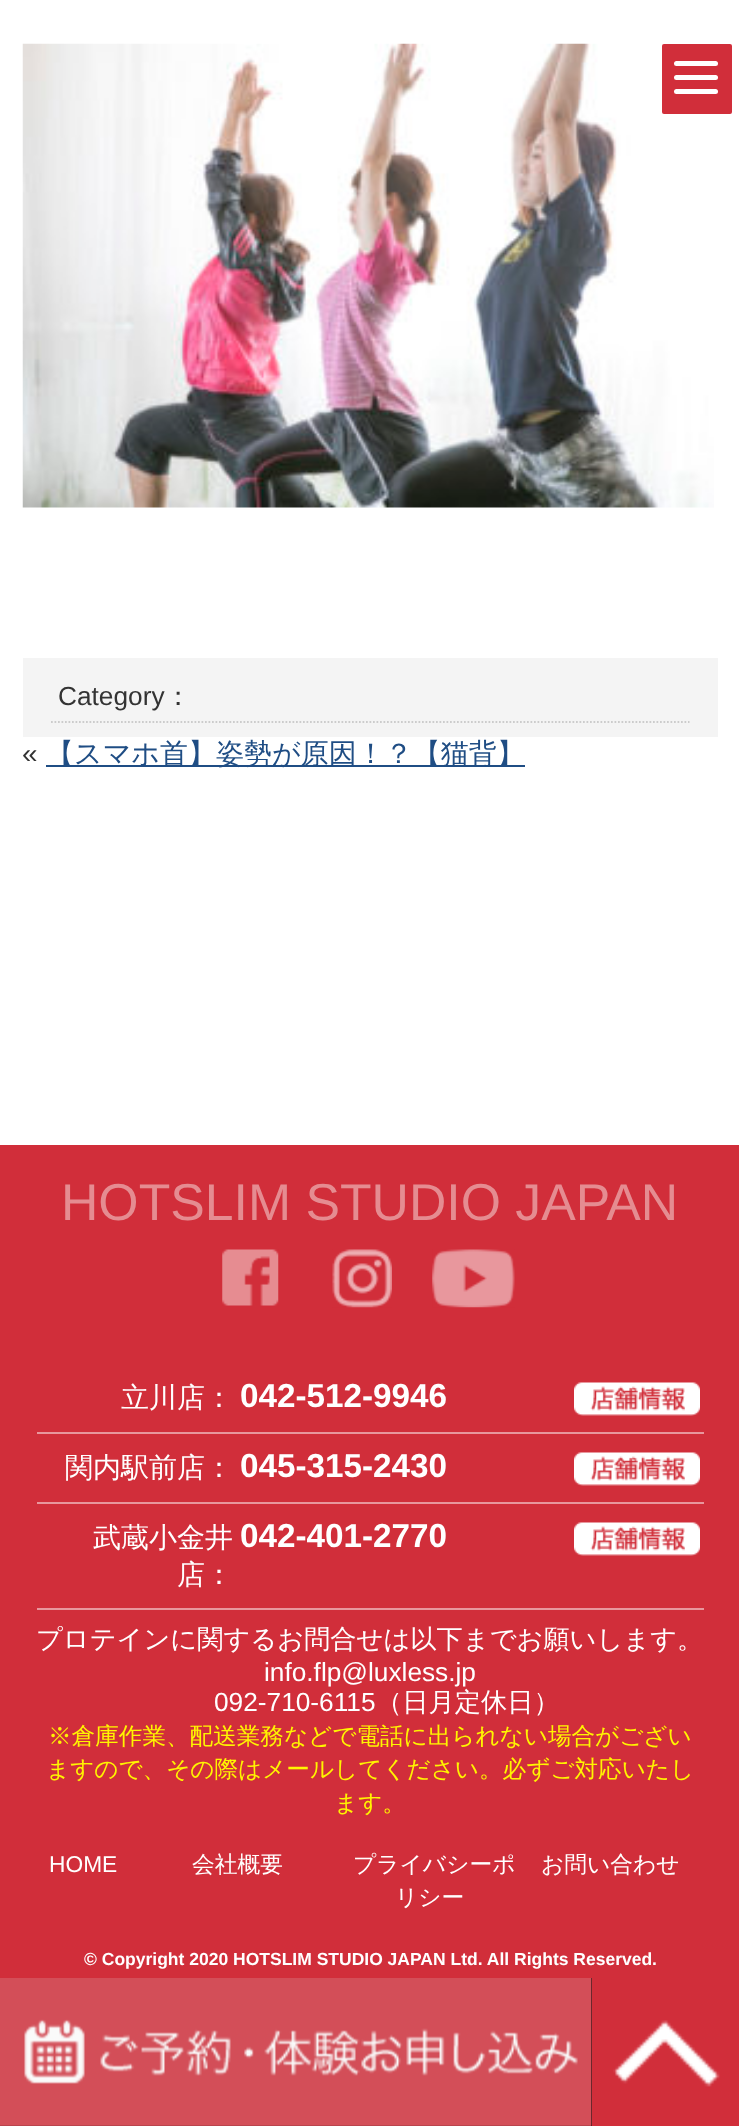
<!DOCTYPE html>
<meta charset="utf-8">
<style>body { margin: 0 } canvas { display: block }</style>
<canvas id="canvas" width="739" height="2126"></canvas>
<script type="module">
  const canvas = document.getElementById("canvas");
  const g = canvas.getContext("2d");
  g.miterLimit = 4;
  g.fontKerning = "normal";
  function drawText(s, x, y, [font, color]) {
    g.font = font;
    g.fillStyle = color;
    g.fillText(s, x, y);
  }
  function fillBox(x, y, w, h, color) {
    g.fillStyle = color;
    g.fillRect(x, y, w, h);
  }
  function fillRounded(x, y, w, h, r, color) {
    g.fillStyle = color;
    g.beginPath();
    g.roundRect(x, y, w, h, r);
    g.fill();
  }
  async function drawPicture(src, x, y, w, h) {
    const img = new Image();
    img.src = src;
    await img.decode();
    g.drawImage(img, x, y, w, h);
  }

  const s1 = ["26.25px Liberation Sans", "#333333"];
  const s2 = ["500 26.25px WenQuanYi Zen Hei", "#333333"];
  const s3 = ["28px Liberation Sans", "#333333"];
  const s4 = ["500 28px WenQuanYi Zen Hei", "#1F4D84"];
  const s5 = ["51.75px Liberation Sans", "#E58C91"];
  const s6 = ["500 28px WenQuanYi Zen Hei", "#FFFFFF"];
  const s7 = ["bold 33.25px Liberation Sans", "#FFFFFF"];
  const s8 = ["500 26.25px WenQuanYi Zen Hei", "#FFFFFF"];
  const s9 = ["26.25px Liberation Sans", "#FFFFFF"];
  const s10 = ["500 23.6px WenQuanYi Zen Hei", "#FFF500"];
  const s11 = ["22.75px Liberation Sans", "#FFFFFF"];
  const s12 = ["500 22.75px WenQuanYi Zen Hei", "#FFFFFF"];
  const s13 = ["bold 17.5px Liberation Sans", "#FFFFFF"];

  fillBox(0, 0, 739, 2126, "#FFFFFF");
  await drawPicture("pic1.png", 22, 43, 692, 465);
  fillRounded(662, 44, 70, 70, 2, "#D12E3A");
  fillRounded(674, 61, 44, 5, 2.5, "#FFFFFF");
  fillRounded(674, 75, 44, 5, 2.5, "#FFFFFF");
  fillRounded(674, 89, 44, 5, 2.5, "#FFFFFF");
  fillBox(23, 658, 695, 79, "#F4F4F4");
  g.beginPath();
  g.moveTo(51, 722);
  g.lineTo(689.5, 722);
  g.strokeStyle = "#CCCCCC";
  g.lineWidth = 1.8;
  g.setLineDash([1.75, 1.75]);
  g.stroke();
  drawText("Category", 58, 705, s1);
  drawText("：", 165, 705, s2);
  drawText("«", 22, 763, s3);
  fillBox(46, 765, 479, 2, "#1F4D84");
  drawText("【スマホ首】姿勢が原因！？【猫背】", 46, 763, s4);
  fillBox(0, 1145, 739, 981, "#D12E3A");
  drawText("HOTSLIM STUDIO JAPAN", 61, 1220, s5);
  await drawPicture("pic2.png", 222, 1249, 57, 57);
  await drawPicture("pic3.png", 332, 1249, 60, 59);
  await drawPicture("pic4.png", 432, 1249, 83, 59);
  fillBox(37, 1432, 667, 2, "#E8979D");
  drawText("立川店：", 121, 1407, s6);
  drawText("042-512-9946", 240, 1407, s7);
  await drawPicture("pic5.png", 574, 1382, 126, 34);
  fillBox(37, 1502, 667, 2, "#E8979D");
  drawText("関内駅前店：", 65, 1477, s6);
  drawText("045-315-2430", 240, 1477, s7);
  await drawPicture("pic5.png", 574, 1452, 126, 34);
  fillBox(37, 1608, 667, 2, "#E8979D");
  drawText("武蔵小金井", 93, 1547, s6);
  drawText("店：", 177, 1584, s6);
  drawText("042-401-2770", 240, 1547, s7);
  await drawPicture("pic5.png", 574, 1522, 126, 34);
  drawText("プロテインに関するお問合せは以下までお願いします。", 36, 1648, s8);
  drawText("info.flp@luxless.jp", 264, 1681, s9);
  drawText("092-710-6115", 214, 1711, s9);
  drawText("（日月定休日）", 376, 1711, s8);
  drawText("※倉庫作業、配送業務などで電話に出られない場合がござい", 48, 1744, s10);
  drawText("ますので、その際はメールしてください。必ずご対応いたし", 46, 1777, s10);
  drawText("ます。", 334, 1811, s10);
  drawText("HOME", 49, 1872, s11);
  drawText("会社概要", 192, 1872, s12);
  drawText("プライバシーポ", 353, 1872, s12);
  drawText("リシー", 395, 1905, s12);
  drawText("お問い合わせ", 541, 1872, s12);
  drawText("© Copyright 2020 HOTSLIM STUDIO JAPAN Ltd. All Rights Reserved.", 84, 1965, s13);
  fillBox(0, 1978, 592, 148, "#040101");
  await drawPicture("pic6.png", 0, 1978, 592, 148);
  await drawPicture("pic7.png", 613, 2020, 107, 67);
</script>
